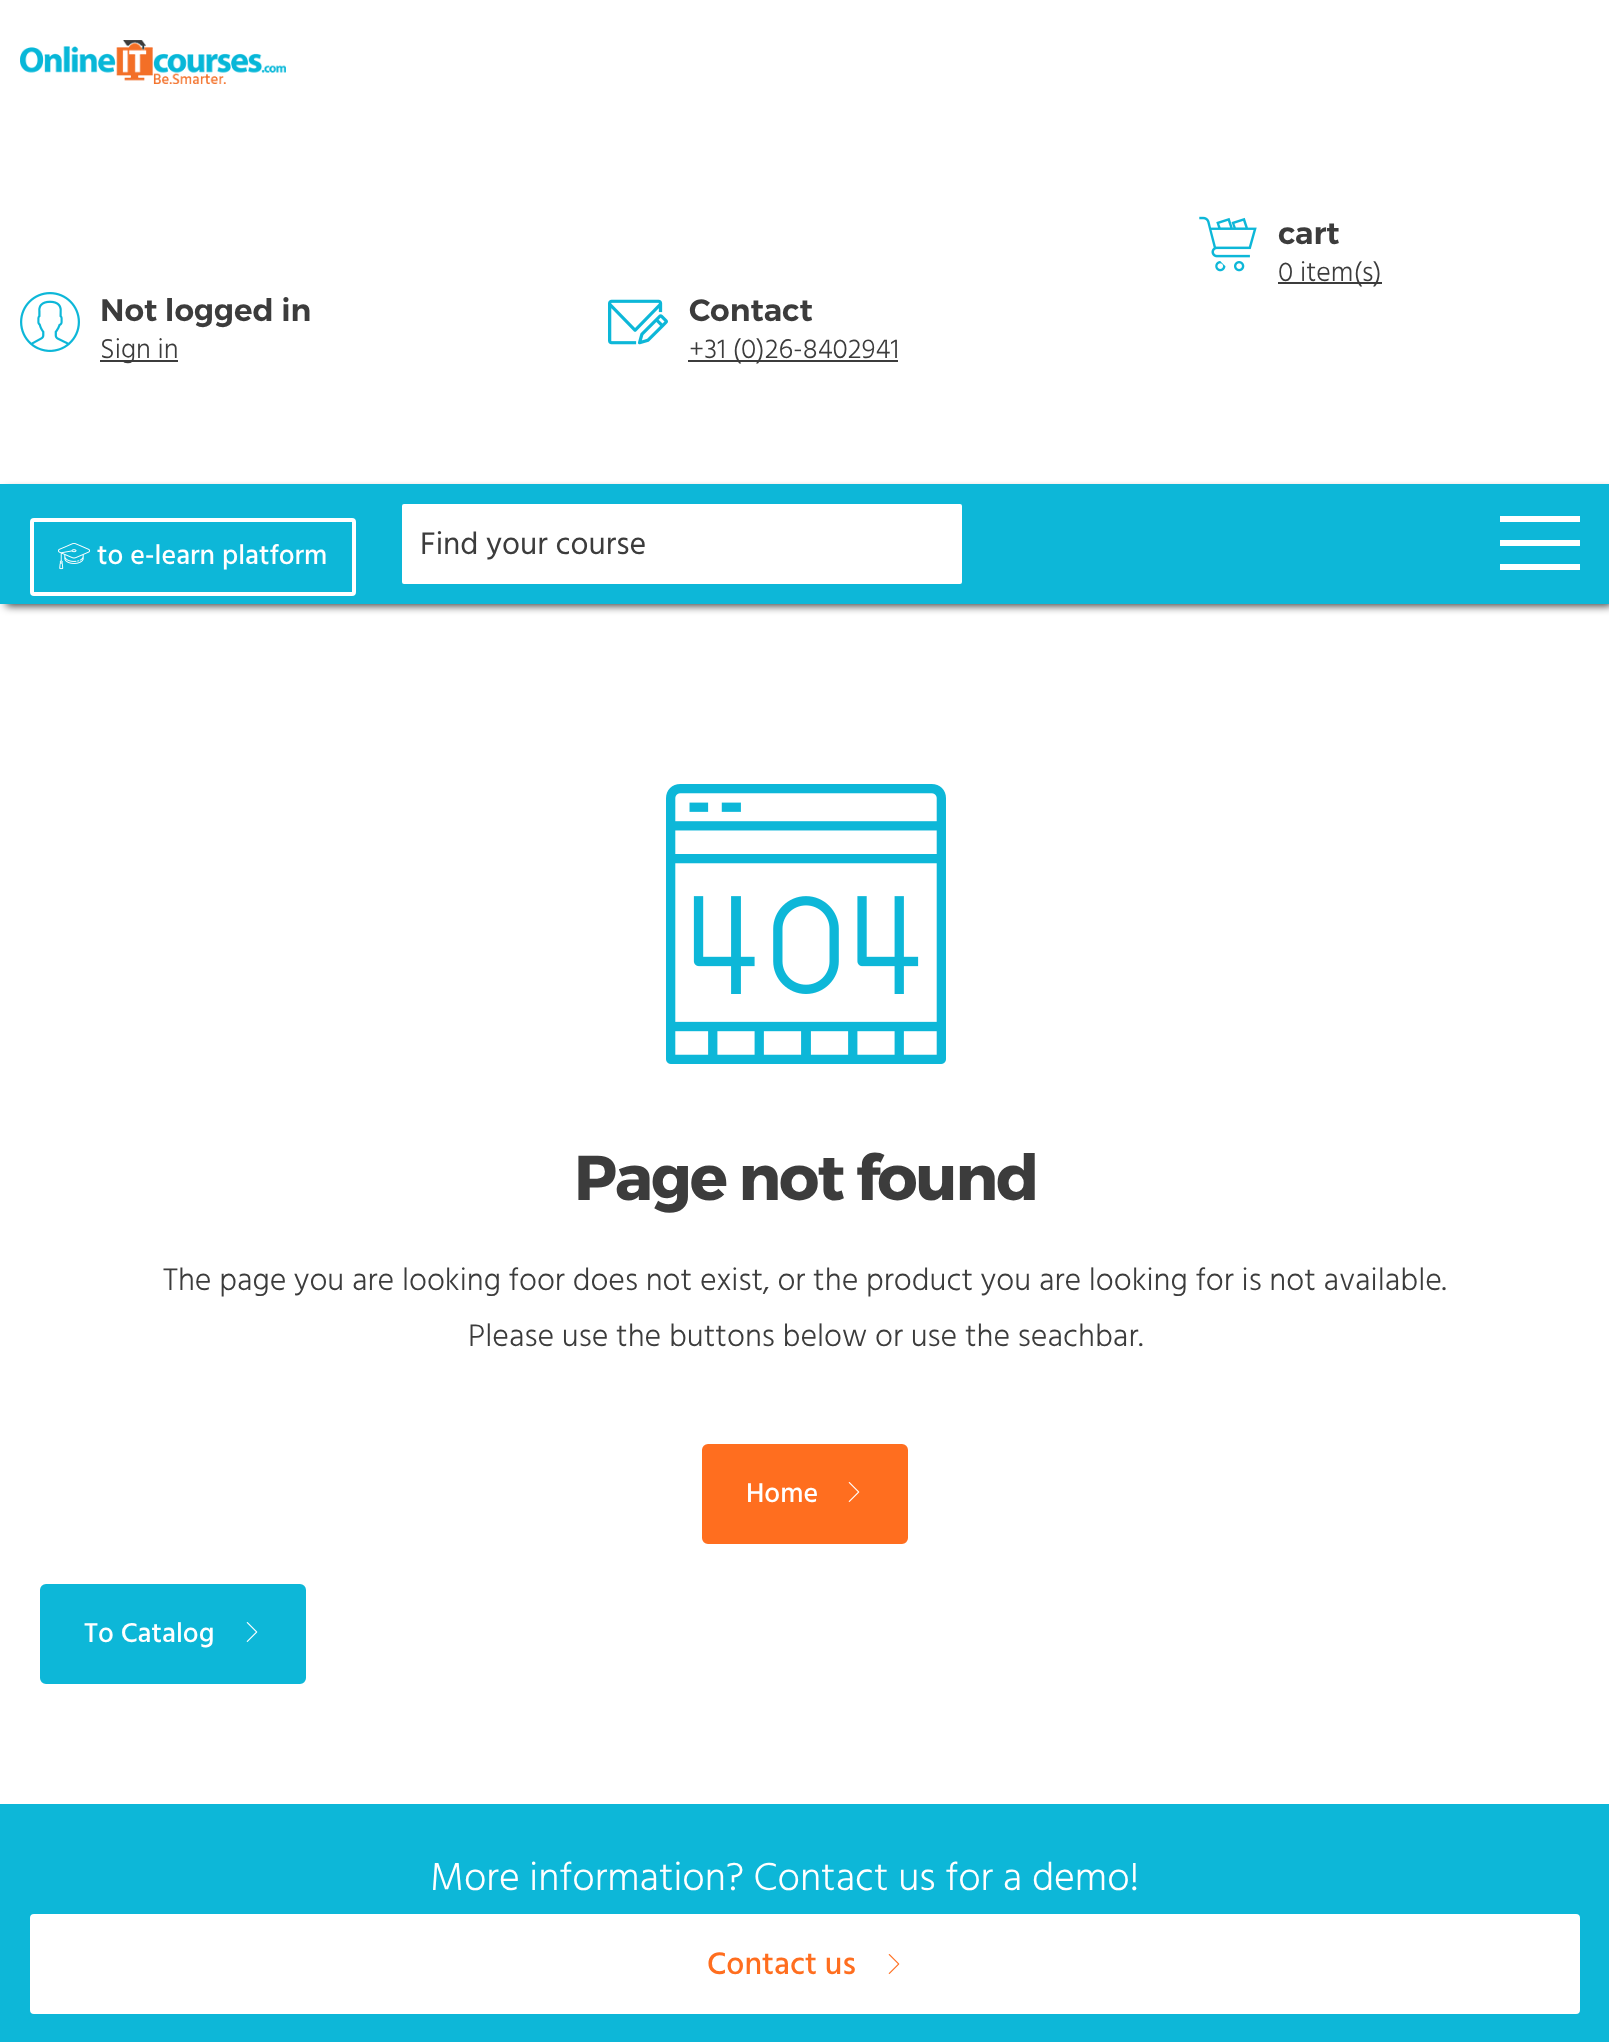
<!DOCTYPE html>
<meta charset="utf-8">
<style>body { margin: 0 } canvas { display: block }</style>
<canvas id="canvas" width="1609" height="2042"></canvas>
<script type="module">
  const canvas = document.getElementById("canvas");
  const g = canvas.getContext("2d");
  g.miterLimit = 4;
  g.fontKerning = "normal";
  function drawText(s, x, y, [font, color]) {
    g.font = font;
    g.fillStyle = color;
    g.fillText(s, x, y);
  }
  function fillBox(x, y, w, h, color) {
    g.fillStyle = color;
    g.fillRect(x, y, w, h);
  }
  function fillRounded(x, y, w, h, r, color) {
    g.fillStyle = color;
    g.beginPath();
    g.roundRect(x, y, w, h, r);
    g.fill();
  }
  async function drawPicture(src, x, y, w, h) {
    const img = new Image();
    img.src = src;
    await img.decode();
    g.drawImage(img, x, y, w, h);
  }

  const s1 = ["600 31px Montserrat", "#3C3C3C"];
  const s2 = ["300 28px Hind", "#3C3C3C"];
  const s3 = ["500 28px Hind", "#FFFFFF"];
  const s4 = ["32px Hind", "#3C3C3C"];
  const s5 = ["bold 63.25px Montserrat", "#3C3C3C"];
  const s6 = ["300 32px Hind", "#3C3C3C"];
  const s7 = ["300 40px Hind", "#FFFFFF"];
  const s8 = ["500 32px Hind", "#FF6E1F"];

  fillBox(0, 0, 1609, 2042, "#FFFFFF");
  await drawPicture("pic1.png", 20, 40, 266, 44);
  await drawPicture("pic2.png", 1199, 216, 58, 56);
  drawText("cart", 1278, 244, s1);
  fillBox(1278, 282, 104, 2, "#3C3C3C");
  drawText("0 item(s)", 1278, 281, s2);
  await drawPicture("pic3.png", 20, 292, 60, 60);
  drawText("Not logged in", 100, 321, s1);
  fillBox(100, 360, 78, 2, "#3C3C3C");
  drawText("Sign in", 100, 358, s2);
  await drawPicture("pic4.png", 608, 299, 60, 46);
  drawText("Contact", 689, 321, s1);
  fillBox(688, 360, 210, 2, "#3C3C3C");
  drawText("+31 (0)26-8402941", 689, 358, s2);
  g.fillStyle = "rgba(0, 0, 0, 0.75)";
  g.filter = "blur(4px)";
  g.beginPath();
  g.rect(6, 490, 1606, 116);
  g.fill();
  g.filter = "none";
  fillBox(0, 484, 1609, 120, "#0DB7D8");
  g.beginPath();
  g.roundRect(32, 520, 322, 74, 2);
  g.strokeStyle = "#FFFFFF";
  g.lineWidth = 4;
  g.stroke();
  await drawPicture("pic5.png", 58, 543, 32, 27);
  drawText("to e-learn platform", 97, 564, s3);
  fillRounded(402, 504, 560, 80, 2, "#FFFFFF");
  drawText("Find your course", 420, 554, s4);
  fillBox(1500, 540, 80, 6, "#FFFFFF");
  fillBox(1500, 516, 80, 6, "#FFFFFF");
  fillBox(1500, 564, 80, 6, "#FFFFFF");
  await drawPicture("pic6.png", 666, 784, 280, 280);
  g.letterSpacing = "-2px";
  drawText("Page not found", 574, 1200, s5);
  g.letterSpacing = "0px";
  drawText("The page you are looking foor does not exist, or the product you are looking for is not available.", 163, 1290, s6);
  drawText("Please use the buttons below or use the seachbar.", 468, 1346, s6);
  g.fillStyle = "#FF6E1F";
  g.beginPath();
  g.roundRect(704, 1446, 202, 96, 4);
  g.fill();
  g.strokeStyle = "#FF6E1F";
  g.stroke();
  drawText("Home", 746, 1502, s3);
  await drawPicture("pic7.png", 848, 1482, 12, 20);
  g.fillStyle = "#0DB7D8";
  g.beginPath();
  g.roundRect(42, 1586, 262, 96, 4);
  g.fill();
  g.strokeStyle = "#0DB7D8";
  g.stroke();
  drawText("To Catalog", 84, 1642, s3);
  await drawPicture("pic8.png", 246, 1622, 12, 20);
  fillBox(0, 1804, 1609, 238, "#0DB7D8");
  drawText("More information? Contact us for a demo!", 430, 1890, s7);
  g.beginPath();
  g.roundRect(32, 1916, 1546, 96, 2);
  g.fill();
  g.strokeStyle = "#FFFFFF";
  g.stroke();
  drawText("Contact us", 707, 1974, s8);
  await drawPicture("pic9.png", 888, 1954, 12, 20);
</script>
